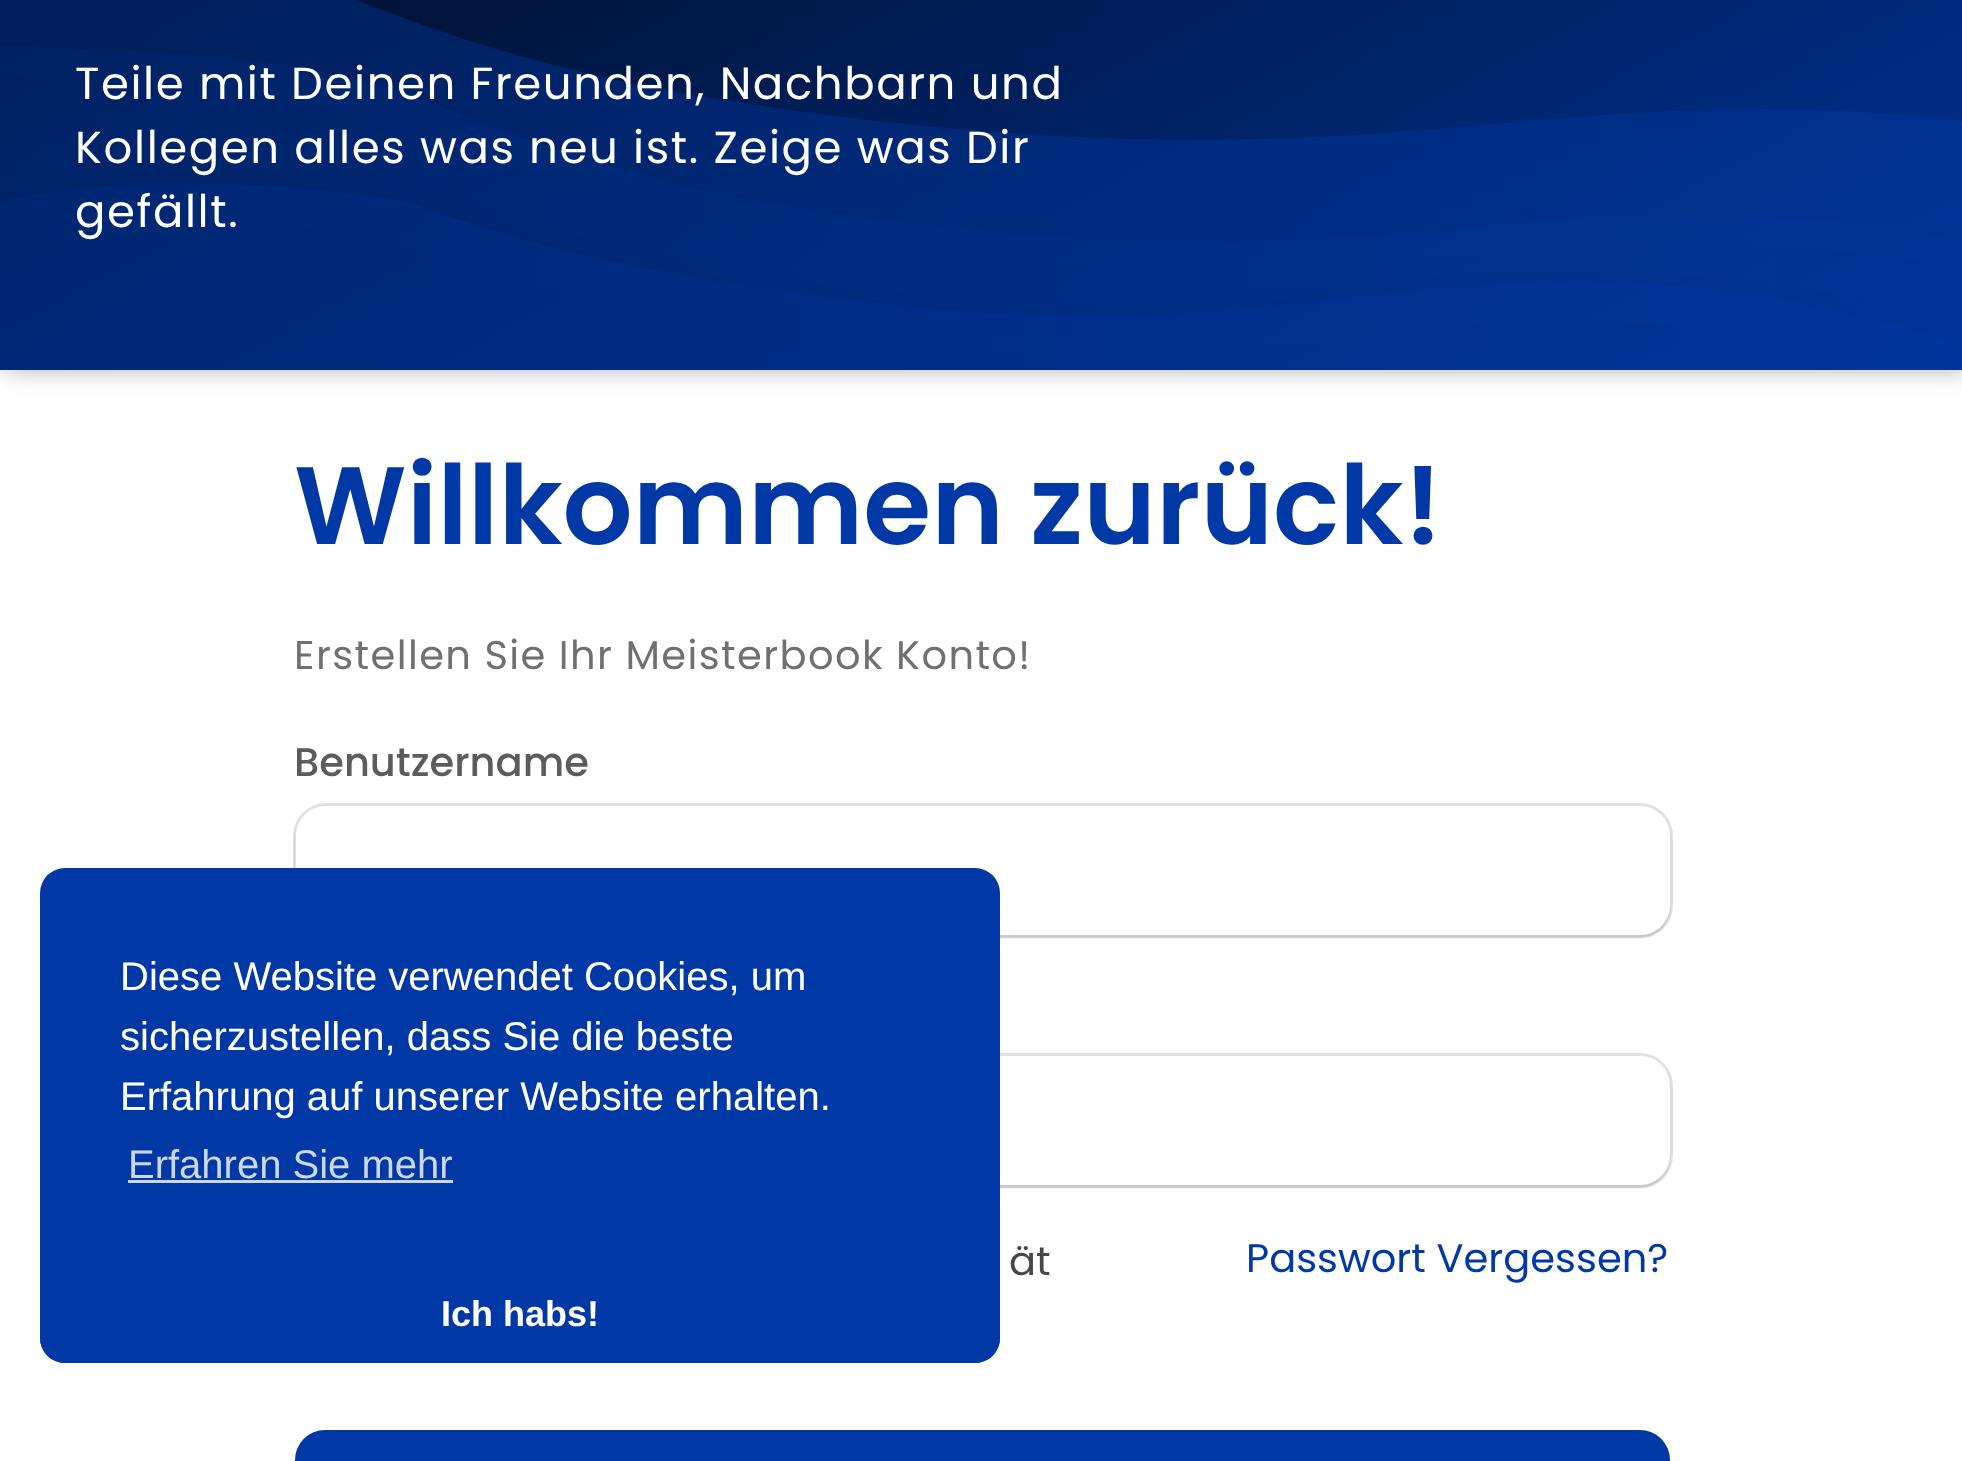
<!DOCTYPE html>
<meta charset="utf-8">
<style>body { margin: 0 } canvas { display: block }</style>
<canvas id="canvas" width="1962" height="1461"></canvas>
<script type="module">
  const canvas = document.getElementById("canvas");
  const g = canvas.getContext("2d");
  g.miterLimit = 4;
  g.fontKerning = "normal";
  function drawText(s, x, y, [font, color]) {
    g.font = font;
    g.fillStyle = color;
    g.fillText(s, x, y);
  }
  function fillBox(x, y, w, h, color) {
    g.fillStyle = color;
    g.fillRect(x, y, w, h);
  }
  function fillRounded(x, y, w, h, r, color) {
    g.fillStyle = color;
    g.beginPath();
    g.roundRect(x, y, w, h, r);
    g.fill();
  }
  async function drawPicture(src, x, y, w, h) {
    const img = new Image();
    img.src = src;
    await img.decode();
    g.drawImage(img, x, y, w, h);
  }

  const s1 = ["45px Poppins", "#FFFFFF"];
  const s2 = ["600 110px Poppins", "#0039A6"];
  const s3 = ["40px Poppins", "#707070"];
  const s4 = ["500 40px Poppins", "#5C5C5C"];
  const s5 = ["40px Poppins", "#474747"];
  const s6 = ["40px Poppins", "#0039A6"];
  const s7 = ["40px Liberation Sans", "#FFFFFF"];
  const s8 = ["40px Liberation Sans", "#CCD7ED"];
  const s9 = ["bold 36px Liberation Sans", "#FFFFFF"];

  fillBox(0, 0, 1962, 1461, "#FFFFFF");
  g.fillStyle = "rgba(0, 0, 0, 0.3)";
  g.filter = "blur(12.5px)";
  g.beginPath();
  g.rect(5, -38, 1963, 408);
  g.fill();
  g.filter = "none";
  await drawPicture("pic1.png", 0, 0, 1962, 370);
  g.letterSpacing = "1.6px";
  drawText("Teile mit Deinen Freunden, Nachbarn und", 75, 99, s1);
  drawText("Kollegen alles was neu ist. Zeige was Dir", 75, 163, s1);
  drawText("gefällt.", 75, 227, s1);
  g.letterSpacing = "0px";
  drawText("Willkommen zurück!", 294, 544, s2);
  g.letterSpacing = "1.4px";
  drawText("Erstellen Sie Ihr Meisterbook Konto!", 294, 669, s3);
  g.letterSpacing = "0px";
  drawText("Benutzername", 294, 776, s4);
  g.save();
  g.beginPath();
  g.moveTo(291, 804);
  g.lineTo(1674, 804);
  g.lineTo(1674, 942);
  g.lineTo(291, 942);
  g.closePath();
  g.moveTo(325, 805);
  g.lineTo(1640, 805);
  g.bezierCurveTo(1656.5, 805, 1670, 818.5, 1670, 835);
  g.lineTo(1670, 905);
  g.bezierCurveTo(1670, 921.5, 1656.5, 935, 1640, 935);
  g.lineTo(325, 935);
  g.bezierCurveTo(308.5, 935, 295, 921.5, 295, 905);
  g.lineTo(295, 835);
  g.bezierCurveTo(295, 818.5, 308.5, 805, 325, 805);
  g.closePath();
  g.clip("evenodd");
  g.fillStyle = "rgba(0, 0, 0, 0.12)";
  g.filter = "blur(1px)";
  g.beginPath();
  g.roundRect(295, 808, 1375, 130, 30);
  g.fill();
  g.filter = "none";
  g.restore();
  g.beginPath();
  g.roundRect(294.5, 804.5, 1377, 132, 31.5);
  g.strokeStyle = "rgba(60, 66, 87, 0.16)";
  g.lineWidth = 3;
  g.stroke();
  g.save();
  g.beginPath();
  g.moveTo(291, 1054);
  g.lineTo(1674, 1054);
  g.lineTo(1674, 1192);
  g.lineTo(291, 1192);
  g.closePath();
  g.moveTo(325, 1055);
  g.lineTo(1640, 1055);
  g.bezierCurveTo(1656.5, 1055, 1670, 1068.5, 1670, 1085);
  g.lineTo(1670, 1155);
  g.bezierCurveTo(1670, 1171.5, 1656.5, 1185, 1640, 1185);
  g.lineTo(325, 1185);
  g.bezierCurveTo(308.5, 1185, 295, 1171.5, 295, 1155);
  g.lineTo(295, 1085);
  g.bezierCurveTo(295, 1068.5, 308.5, 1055, 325, 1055);
  g.closePath();
  g.clip("evenodd");
  g.fillStyle = "rgba(0, 0, 0, 0.12)";
  g.filter = "blur(1px)";
  g.beginPath();
  g.roundRect(295, 1058, 1375, 130, 30);
  g.fill();
  g.filter = "none";
  g.restore();
  g.beginPath();
  g.roundRect(294.5, 1054.5, 1377, 132, 31.5);
  g.stroke();
  drawText("ät", 1009, 1275, s5);
  drawText("Passwort Vergessen?", 1246, 1272, s6);
  fillRounded(295, 1430, 1375, 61, 30, "#0039A6");
  fillRounded(40, 868, 960, 495, 25, "#0039A6");
  drawText("Diese Website verwendet Cookies, um", 120, 990, s7);
  drawText("sicherzustellen, dass Sie die beste", 120, 1050, s7);
  drawText("Erfahrung auf unserer Website erhalten.", 120, 1110, s7);
  drawText("Erfahren Sie mehr", 128, 1178, s8);
  fillBox(128, 1180, 325, 3, "#CCD7ED");
  g.fillStyle = "#0039A6";
  g.beginPath();
  g.roundRect(40, 1265, 960, 98, [0, 0, 25, 25]);
  g.fill();
  drawText("Ich habs!", 441, 1326, s9);
</script>
